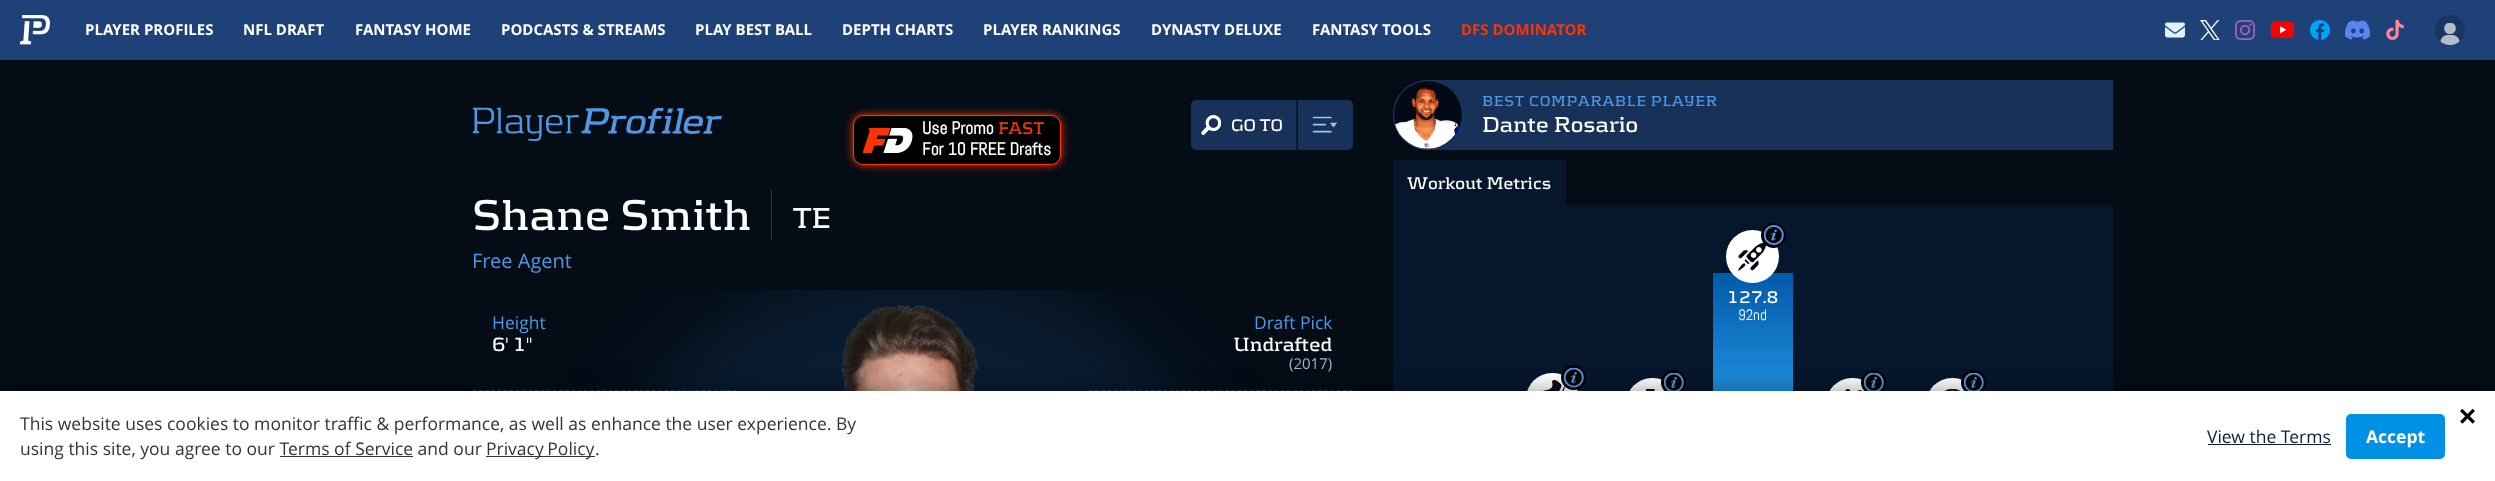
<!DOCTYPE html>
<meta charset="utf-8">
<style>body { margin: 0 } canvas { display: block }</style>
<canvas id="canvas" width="2495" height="481"></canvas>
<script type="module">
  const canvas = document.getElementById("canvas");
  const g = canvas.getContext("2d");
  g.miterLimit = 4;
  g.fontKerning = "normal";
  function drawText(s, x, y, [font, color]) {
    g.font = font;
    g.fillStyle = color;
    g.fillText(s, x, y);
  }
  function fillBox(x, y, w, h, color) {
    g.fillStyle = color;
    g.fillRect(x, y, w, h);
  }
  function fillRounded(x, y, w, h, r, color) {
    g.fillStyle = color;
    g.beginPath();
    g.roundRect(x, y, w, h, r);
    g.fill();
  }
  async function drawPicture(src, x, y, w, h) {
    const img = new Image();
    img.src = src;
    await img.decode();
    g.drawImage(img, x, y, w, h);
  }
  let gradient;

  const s1 = ["bold 15px Open Sans", "#FFFFFF"];
  const s2 = ["bold 15px Open Sans", "#FF3401"];
  const s3 = ["bold 17.5px Abel", "#FFFFFF"];
  const s4 = ["bold 17.5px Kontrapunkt", "#FF3401"];
  const s5 = ["bold 17.5px Kontrapunkt", "#FFFFFF"];
  const s6 = ["bold 45px Kontrapunkt", "#FFFFFF"];
  const s7 = ["bold 30px Kontrapunkt", "#FFFFFF"];
  const s8 = ["20px Open Sans", "#5098E4"];
  const s9 = ["17.5px Open Sans", "#5098E4"];
  const s10 = ["bold 20px Kontrapunkt", "#FFFFFF"];
  const s11 = ["15px Open Sans", "#A5B3C9"];
  const s12 = ["bold 15px Kontrapunkt", "#5098E4"];
  const s13 = ["bold 22.5px Kontrapunkt", "#FFFFFF"];
  const s14 = ["15px Abel", "#FFFFFF"];
  const s15 = ["17.5px Open Sans", "#33333E"];
  const s16 = ["17.5px Open Sans", "#0F203A"];
  const s17 = ["bold 17.5px Open Sans", "#FFFFFF"];

  fillBox(0, 0, 2495, 481, "#040C16");
  fillBox(0, 0, 2495, 60, "#1E4177");
  await drawPicture("pic1.png", 20, 15, 30, 30);
  drawText("PLAYER PROFILES", 85, 35, s1);
  drawText("NFL DRAFT", 243, 35, s1);
  drawText("FANTASY HOME", 355, 35, s1);
  drawText("PODCASTS & STREAMS", 501, 35, s1);
  drawText("PLAY BEST BALL", 695, 35, s1);
  drawText("DEPTH CHARTS", 842, 35, s1);
  drawText("PLAYER RANKINGS", 983, 35, s1);
  drawText("DYNASTY DELUXE", 1151, 35, s1);
  drawText("FANTASY TOOLS", 1312, 35, s1);
  drawText("DFS DOMINATOR", 1461, 35, s2);
  await drawPicture("pic2.png", 2165, 22, 20, 16);
  await drawPicture("pic3.png", 2200, 20, 20, 20);
  await drawPicture("pic4.png", 2235, 20, 20, 20);
  await drawPicture("pic5.png", 2270, 21, 25, 17);
  await drawPicture("pic6.png", 2310, 20, 20, 20);
  await drawPicture("pic7.png", 2345, 20, 25, 20);
  await drawPicture("pic8.png", 2386, 20, 18, 20);
  g.fillStyle = "#193561";
  g.beginPath();
  g.arc(2450, 30, 15, 0, Math.PI * 2);
  g.fill();
  await drawPicture("pic9.png", 2440, 23, 20, 22);
  await drawPicture("pic10.png", 472, 107, 250, 34);
  g.fillStyle = "#FF3401";
  g.filter = "blur(4px)";
  g.beginPath();
  g.roundRect(853, 115, 208, 50, 10);
  g.fill();
  g.filter = "none";
  g.fillStyle = "#000000";
  g.beginPath();
  g.roundRect(853.5, 115.5, 207, 49, 9.5);
  g.fill();
  g.strokeStyle = "#FF3401";
  g.stroke();
  await drawPicture("pic11.png", 863, 128, 50, 25);
  drawText("Use Promo", 922, 134, s3);
  drawText("FAST", 998, 134, s4);
  drawText("For 10 FREE Drafts", 922, 155, s3);
  g.fillStyle = "#173159";
  g.beginPath();
  g.roundRect(1191, 100, 105, 50, [5, 0, 0, 5]);
  g.fill();
  await drawPicture("pic12.png", 1201, 115, 20, 20);
  drawText("GO TO", 1231, 131, s5);
  fillBox(1296, 100, 1, 50, "#132033");
  g.fillStyle = "#173159";
  g.beginPath();
  g.roundRect(1298, 100, 55, 50, [0, 5, 5, 0]);
  g.fill();
  await drawPicture("pic13.png", 1312, 116, 25, 17);
  drawText("Shane Smith", 472, 230, s6);
  fillBox(771, 190, 1, 50, "#1D3A5A");
  drawText("TE", 793, 228, s7);
  drawText("Free Agent", 472, 268, s8);
  g.save();
  g.beginPath();
  g.rect(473, 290, 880, 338);
  g.clip();
  g.fillStyle = "rgba(24, 67, 109, 0.3)";
  g.filter = "blur(37.5px)";
  g.beginPath();
  g.roundRect(583, 263, 660, 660, 330);
  g.fill();
  g.filter = "none";
  g.restore();
  await drawPicture("pic14.png", 841, 305, 138, 86);
  g.beginPath();
  g.moveTo(472.5, 390.5);
  g.lineTo(736, 390.5);
  g.strokeStyle = "#1E4177";
  g.lineWidth = 1.2;
  g.setLineDash([3.75, 2.44]);
  g.stroke();
  drawText("Height", 492, 329, s9);
  drawText("6' 1\"", 492, 351, s10);
  g.beginPath();
  g.moveTo(1089, 390.5);
  g.lineTo(1352.5, 390.5);
  g.stroke();
  drawText("Draft Pick", 1254, 329, s9);
  drawText("Undrafted", 1233, 351, s10);
  drawText("(2017)", 1289, 369, s11);
  g.fillStyle = "#173159";
  g.beginPath();
  g.roundRect(1393, 80, 720, 70, [35, 0, 0, 35]);
  g.fill();
  g.fillStyle = "#030A15";
  g.beginPath();
  g.arc(1428, 115, 34.5, 0, Math.PI * 2);
  g.fill();
  g.strokeStyle = "#1B3B6B";
  g.lineWidth = 1;
  g.setLineDash([]);
  g.stroke();
  await drawPicture("pic15.png", 1395, 85, 64, 64);
  g.letterSpacing = "0.75px";
  drawText("BEST COMPARABLE PLAYER", 1482, 106, s12);
  g.letterSpacing = "0px";
  drawText("Dante Rosario", 1482, 132, s13);
  fillBox(1393, 160, 173, 45, "#06172D");
  drawText("Workout Metrics", 1407, 189, s5);
  fillBox(1393, 205, 720, 186, "#06172D");
  gradient = g.createLinearGradient(1753, 475, 1753, 273);
  gradient.addColorStop(0, "#32B3FF");
  gradient.addColorStop(1, "#035AA9");
  g.fillStyle = gradient;
  g.fillRect(1713, 273, 80, 118);
  g.fillStyle = "#FFFFFF";
  g.beginPath();
  g.arc(1752.5, 256.5, 26.5, 0, Math.PI * 2);
  g.fill();
  await drawPicture("pic17.png", 1738, 242, 29, 29);
  g.fillStyle = "#000000";
  g.beginPath();
  g.arc(1773.5, 235.5, 12.5, 0, Math.PI * 2);
  g.fill();
  await drawPicture("pic16.png", 1764, 225, 20, 20);
  drawText("127.8", 1727, 303, s5);
  drawText("92nd", 1738, 320, s14);
  fillRounded(1526, 373, 53, 52, 26, "#FFFFFF");
  await drawPicture("pic18.png", 1543, 380, 22, 11);
  g.fillStyle = "#000000";
  g.beginPath();
  g.arc(1573.5, 377.5, 12.5, 0, Math.PI * 2);
  g.fill();
  await drawPicture("pic19.png", 1564, 368, 20, 20);
  fillRounded(1626, 378, 53, 52, 26, "#FFFFFF");
  await drawPicture("pic20.png", 1646, 389, 9, 2);
  g.fillStyle = "#000000";
  g.beginPath();
  g.arc(1673.5, 382.5, 12.5, 0, Math.PI * 2);
  g.fill();
  await drawPicture("pic21.png", 1664, 373, 20, 18);
  fillRounded(1826, 378, 53, 52, 26, "#FFFFFF");
  await drawPicture("pic22.png", 1845, 389, 18, 2);
  g.fillStyle = "#000000";
  g.beginPath();
  g.arc(1873.5, 382.5, 12.5, 0, Math.PI * 2);
  g.fill();
  await drawPicture("pic21.png", 1864, 373, 20, 18);
  fillRounded(1926, 378, 53, 52, 26, "#FFFFFF");
  await drawPicture("pic23.png", 1944, 389, 17, 2);
  g.fillStyle = "#000000";
  g.beginPath();
  g.arc(1973.5, 382.5, 12.5, 0, Math.PI * 2);
  g.fill();
  await drawPicture("pic21.png", 1964, 373, 20, 18);
  g.fillStyle = "rgba(0, 0, 0, 0.4)";
  g.filter = "blur(11px)";
  g.beginPath();
  g.rect(0, 391, 2495, 90);
  g.fill();
  g.filter = "none";
  fillBox(0, 391, 2495, 90, "#FFFFFF");
  drawText("This website uses cookies to monitor traffic & performance, as well as enhance the user experience. By", 20, 430, s15);
  drawText("using this site, you agree to our Terms of Service and our", 20, 455, s15);
  fillBox(486, 456, 109, 1, "#33333E");
  g.wordSpacing = "-1px";
  drawText("Privacy Policy", 486, 455, s15);
  g.wordSpacing = "0px";
  drawText(".", 595, 455, s15);
  fillBox(280, 456, 133, 1, "#33333E");
  await drawPicture("pic24.png", 2460, 409, 15, 15);
  drawText("View the Terms", 2207, 443, s16);
  fillBox(2208, 444, 123, 1, "#0F203A");
  fillRounded(2346, 414, 99, 45, 5, "#0091E6");
  drawText("Accept", 2366, 443, s17);
</script>
